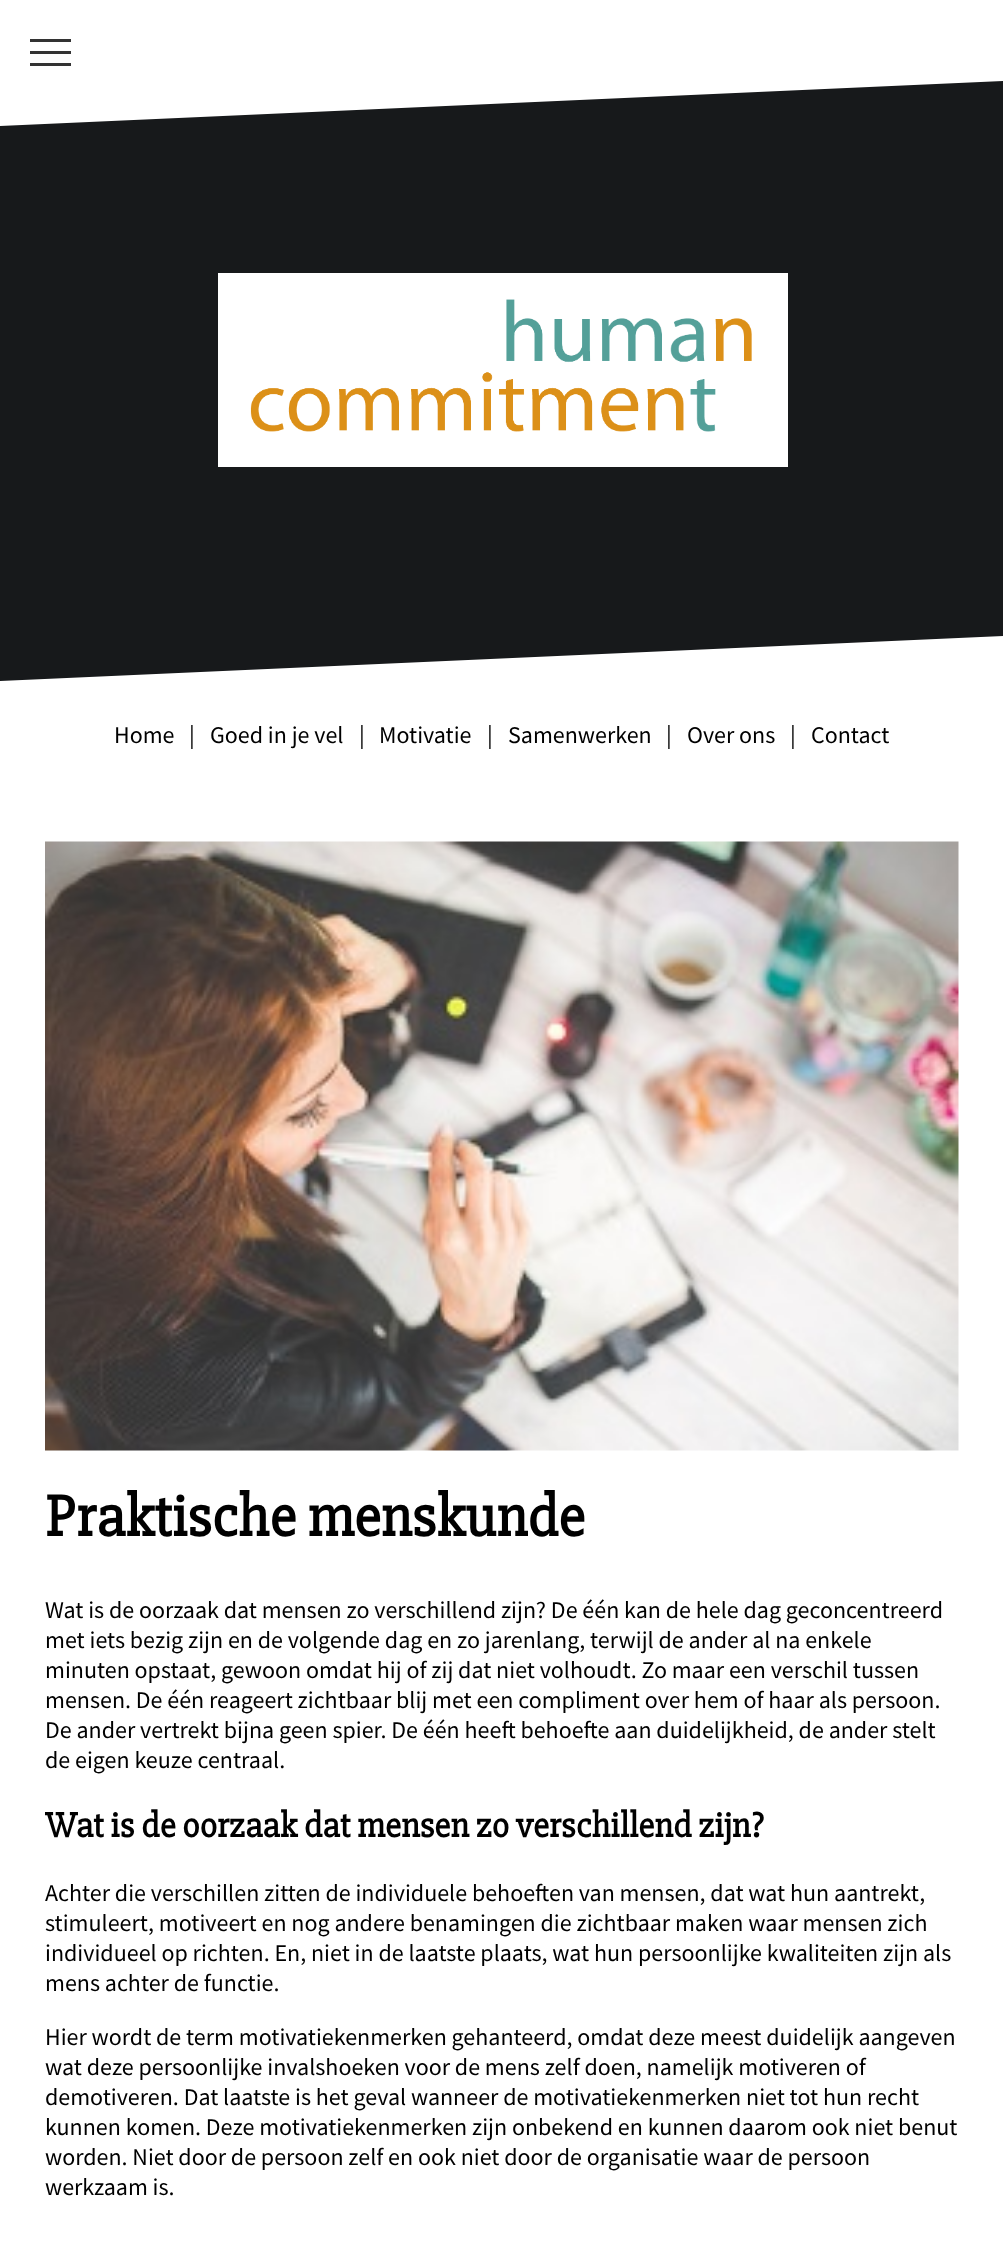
<!DOCTYPE html>
<meta charset="utf-8">
<style>body { margin: 0 } canvas { display: block }</style>
<canvas id="canvas" width="1003" height="2250"></canvas>
<script type="module">
  const canvas = document.getElementById("canvas");
  const g = canvas.getContext("2d");
  g.miterLimit = 4;
  g.fontKerning = "normal";
  function drawText(s, x, y, [font, color]) {
    g.font = font;
    g.fillStyle = color;
    g.fillText(s, x, y);
  }
  function fillBox(x, y, w, h, color) {
    g.fillStyle = color;
    g.fillRect(x, y, w, h);
  }
  async function drawPicture(src, x, y, w, h) {
    const img = new Image();
    img.src = src;
    await img.decode();
    g.drawImage(img, x, y, w, h);
  }

  const s1 = ["24px Source Sans Pro", "#000000"];
  const s2 = ["bold 60px 'Slabo 27px'", "#000000"];
  const s3 = ["bold 36px 'Slabo 27px'", "#000000"];

  fillBox(0, 0, 1003, 2250, "#FFFFFF");
  fillBox(30, 39, 41, 3, "#333333");
  fillBox(30, 51, 41, 3, "#333333");
  fillBox(30, 63, 41, 3, "#333333");
  fillBox(0, 81, 1003, 600, "#17191B");
  g.fillStyle = "#FFFFFF";
  g.beginPath();
  g.moveTo(0, 81);
  g.lineTo(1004, 81);
  g.lineTo(0, 126);
  g.closePath();
  g.fill();
  fillBox(218, 273, 570, 194, "#FFFFFF");
  await drawPicture("pic1.png", 250, 299, 502, 133);
  g.beginPath();
  g.moveTo(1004, 681);
  g.lineTo(0, 681);
  g.lineTo(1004, 636);
  g.closePath();
  g.fill();
  drawText("Home", 114, 743, s1);
  drawText("|", 189, 743, s1);
  drawText("Goed in je vel", 210, 743, s1);
  drawText("|", 359, 743, s1);
  drawText("Motivatie", 379, 743, s1);
  drawText("|", 487, 743, s1);
  drawText("Samenwerken", 508, 743, s1);
  drawText("|", 666, 743, s1);
  drawText("Over ons", 687, 743, s1);
  drawText("|", 790, 743, s1);
  drawText("Contact", 811, 743, s1);
  await drawPicture("pic2.png", 45, 841, 914, 610);
  drawText("Praktische menskunde", 45, 1536, s2);
  drawText("Wat is de oorzaak dat mensen zo verschillend zijn? De één kan de hele dag geconcentreerd", 45, 1618, s1);
  drawText("met iets bezig zijn en de volgende dag en zo jarenlang, terwijl de ander al na enkele", 45, 1648, s1);
  drawText("minuten opstaat, gewoon omdat hij of zij dat niet volhoudt. Zo maar een verschil tussen", 45, 1678, s1);
  drawText("mensen. De één reageert zichtbaar blij met een compliment over hem of haar als persoon.", 45, 1708, s1);
  drawText("De ander vertrekt bijna geen spier. De één heeft behoefte aan duidelijkheid, de ander stelt", 45, 1738, s1);
  drawText("de eigen keuze centraal.", 45, 1768, s1);
  drawText("Wat is de oorzaak dat mensen zo verschillend zijn?", 45, 1837, s3);
  drawText("Achter die verschillen zitten de individuele behoeften van mensen, dat wat hun aantrekt,", 45, 1901, s1);
  drawText("stimuleert, motiveert en nog andere benamingen die zichtbaar maken waar mensen zich", 45, 1931, s1);
  drawText("individueel op richten. En, niet in de laatste plaats, wat hun persoonlijke kwaliteiten zijn als", 45, 1961, s1);
  drawText("mens achter de functie.", 45, 1991, s1);
  drawText("Hier wordt de term motivatiekenmerken gehanteerd, omdat deze meest duidelijk aangeven", 45, 2045, s1);
  drawText("wat deze persoonlijke invalshoeken voor de mens zelf doen, namelijk motiveren of", 45, 2075, s1);
  drawText("demotiveren. Dat laatste is het geval wanneer de motivatiekenmerken niet tot hun recht", 45, 2105, s1);
  drawText("kunnen komen. Deze motivatiekenmerken zijn onbekend en kunnen daarom ook niet benut", 45, 2135, s1);
  drawText("worden. Niet door de persoon zelf en ook niet door de organisatie waar de persoon", 45, 2165, s1);
  drawText("werkzaam is.", 45, 2195, s1);
</script>
